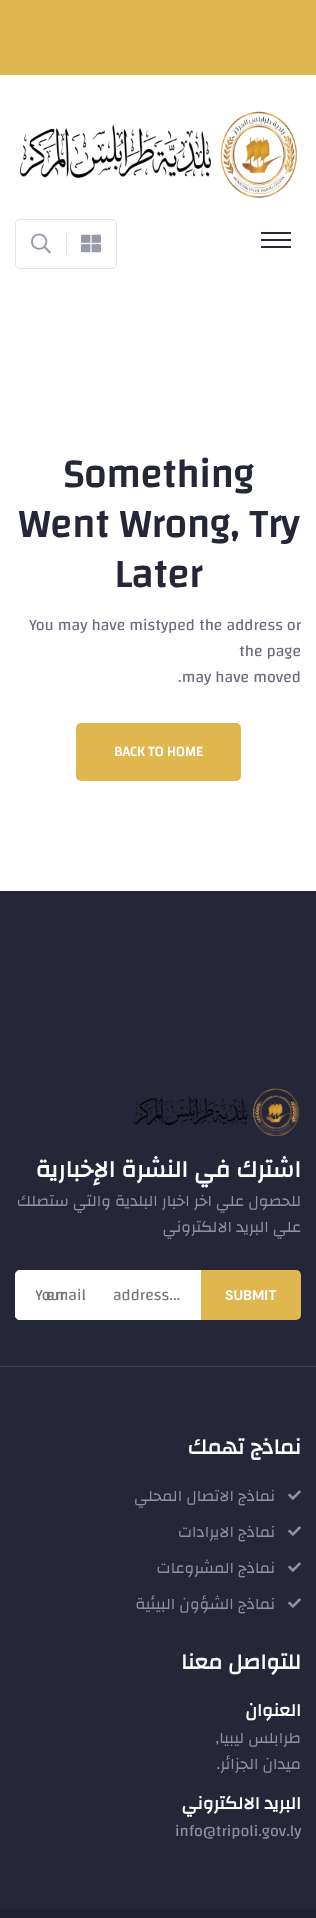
<!DOCTYPE html>
<meta charset="utf-8">
<style>body { margin: 0 } canvas { display: block }</style>
<canvas id="canvas" width="316" height="1918"></canvas>
<script type="module">
  const canvas = document.getElementById("canvas");
  const g = canvas.getContext("2d");
  g.miterLimit = 4;
  g.fontKerning = "normal";
  function drawText(s, x, y, [font, color]) {
    g.font = font;
    g.fillStyle = color;
    g.fillText(s, x, y);
  }
  function fillBox(x, y, w, h, color) {
    g.fillStyle = color;
    g.fillRect(x, y, w, h);
  }
  function fillRounded(x, y, w, h, r, color) {
    g.fillStyle = color;
    g.beginPath();
    g.roundRect(x, y, w, h, r);
    g.fill();
  }
  async function drawPicture(src, x, y, w, h) {
    const img = new Image();
    img.src = src;
    await img.decode();
    g.drawImage(img, x, y, w, h);
  }

  const s1 = ["bold 40px Changa", "#252638"];
  const s2 = ["16px Changa", "#696B7E"];
  const s3 = ["bold 14px Changa", "#FFFFFF"];
  const s4 = ["bold 24px Changa", "#FFFFFF"];
  const s5 = ["16px Changa", "#8E91A2"];
  const s6 = ["bold 14px DM Sans", "#FFFFFF"];
  const s7 = ["16px Changa", "#757575"];
  const s8 = ["bold 22px Changa", "#FFFFFF"];
  const s9 = ["bold 18px Changa", "#FFFFFF"];

  fillBox(0, 0, 316, 1918, "#FFFFFF");
  fillBox(0, 0, 316, 75, "#DFB74E");
  await drawPicture("pic1.png", 19, 111, 278, 87);
  fillBox(261, 232, 30, 2, "#252638");
  fillBox(261, 239, 30, 2, "#252638");
  fillBox(261, 246, 30, 2, "#252638");
  g.beginPath();
  g.roundRect(15.5, 219.5, 101, 49, 4.5);
  g.strokeStyle = "#E3E3E3";
  g.stroke();
  await drawPicture("pic2.png", 81, 234, 20, 19);
  fillBox(66, 234, 1, 9, "#E0E0E0");
  fillBox(66, 245, 1, 9, "#E0E0E0");
  await drawPicture("pic3.png", 31, 233, 20, 21);
  drawText("Something", 63, 487, s1);
  drawText("Went Wrong, Try", 18, 537, s1);
  drawText("Later", 114, 587, s1);
  drawText("You may have mistyped the address or", 29, 630, s2);
  drawText("the page", 239, 656, s2);
  drawText(".may have moved", 178, 682, s2);
  fillRounded(76, 723, 165, 58, 5, "#DFB74E");
  drawText("BACK TO HOME", 114, 756, s3);
  fillBox(0, 891, 316, 1018, "#252638");
  fillBox(0, 1366, 316, 1, "#3B3C4C");
  await drawPicture("pic4.png", 133, 1088, 167, 49);
  g.direction = "rtl";
  drawText("اشترك في النشرة الإخبارية", 301, 1177, s4);
  drawText("للحصول", 301, 1206, s5);
  drawText("علي", 244, 1206, s5);
  drawText("اخر اخبار البلدية والتي ستصلك", 212, 1206, s5);
  drawText("علي البريد الالكتروني", 301, 1232, s5);
  g.fillStyle = "#DFB74E";
  g.beginPath();
  g.roundRect(201, 1270, 100, 50, [0, 5, 5, 0]);
  g.fill();
  g.direction = "ltr";
  drawText("SUBMIT", 225, 1300, s6);
  g.beginPath();
  g.roundRect(15, 1270, 186, 50, [5, 0, 0, 5]);
  g.fill();
  g.beginPath();
  g.moveTo(15, 1275);
  g.lineTo(15, 1315);
  g.bezierCurveTo(15, 1316, 15, 1317, 16, 1318);
  g.lineTo(16, 1272);
  g.closePath();
  g.moveTo(20, 1270);
  g.lineTo(17, 1271);
  g.lineTo(200, 1271);
  g.lineTo(200, 1319);
  g.lineTo(17, 1319);
  g.bezierCurveTo(18, 1320, 19, 1320, 20, 1320);
  g.lineTo(201, 1320);
  g.lineTo(201, 1270);
  g.closePath();
  g.fill("evenodd");
  g.save();
  g.beginPath();
  g.rect(36, 1280, 144, 30);
  g.clip();
  drawText("Your", 35, 1300, s7);
  g.restore();
  g.wordSpacing = "23px";
  drawText("email address...", 46, 1300, s7);
  g.wordSpacing = "0px";
  g.direction = "rtl";
  drawText("نماذج تهمك", 301, 1454, s8);
  await drawPicture("pic5.png", 288, 1490, 13, 10);
  drawText("نماذج", 275, 1501, s5);
  drawText("الاتصال المحلي", 234, 1501, s5);
  await drawPicture("pic5.png", 288, 1526, 13, 10);
  drawText("نماذج", 275, 1537, s5);
  drawText("الايرادات", 234, 1537, s5);
  await drawPicture("pic5.png", 288, 1562, 13, 10);
  drawText("نماذج", 275, 1573, s5);
  drawText("المشروعات", 234, 1573, s5);
  await drawPicture("pic5.png", 288, 1598, 13, 10);
  drawText("نماذج الشؤون البيئية", 275, 1609, s5);
  drawText("للتواصل معنا", 301, 1669, s8);
  drawText("العنوان", 301, 1716, s9);
  drawText("طرابلس ليبيا,", 301, 1743, s5);
  drawText("ميدان الجزائر.", 301, 1769, s5);
  drawText("البريد الالكتروني", 301, 1809, s9);
  g.direction = "ltr";
  drawText("info@tripoli.gov.ly", 175, 1836, s5);
  fillBox(0, 1909, 316, 9, "#202130");
</script>
